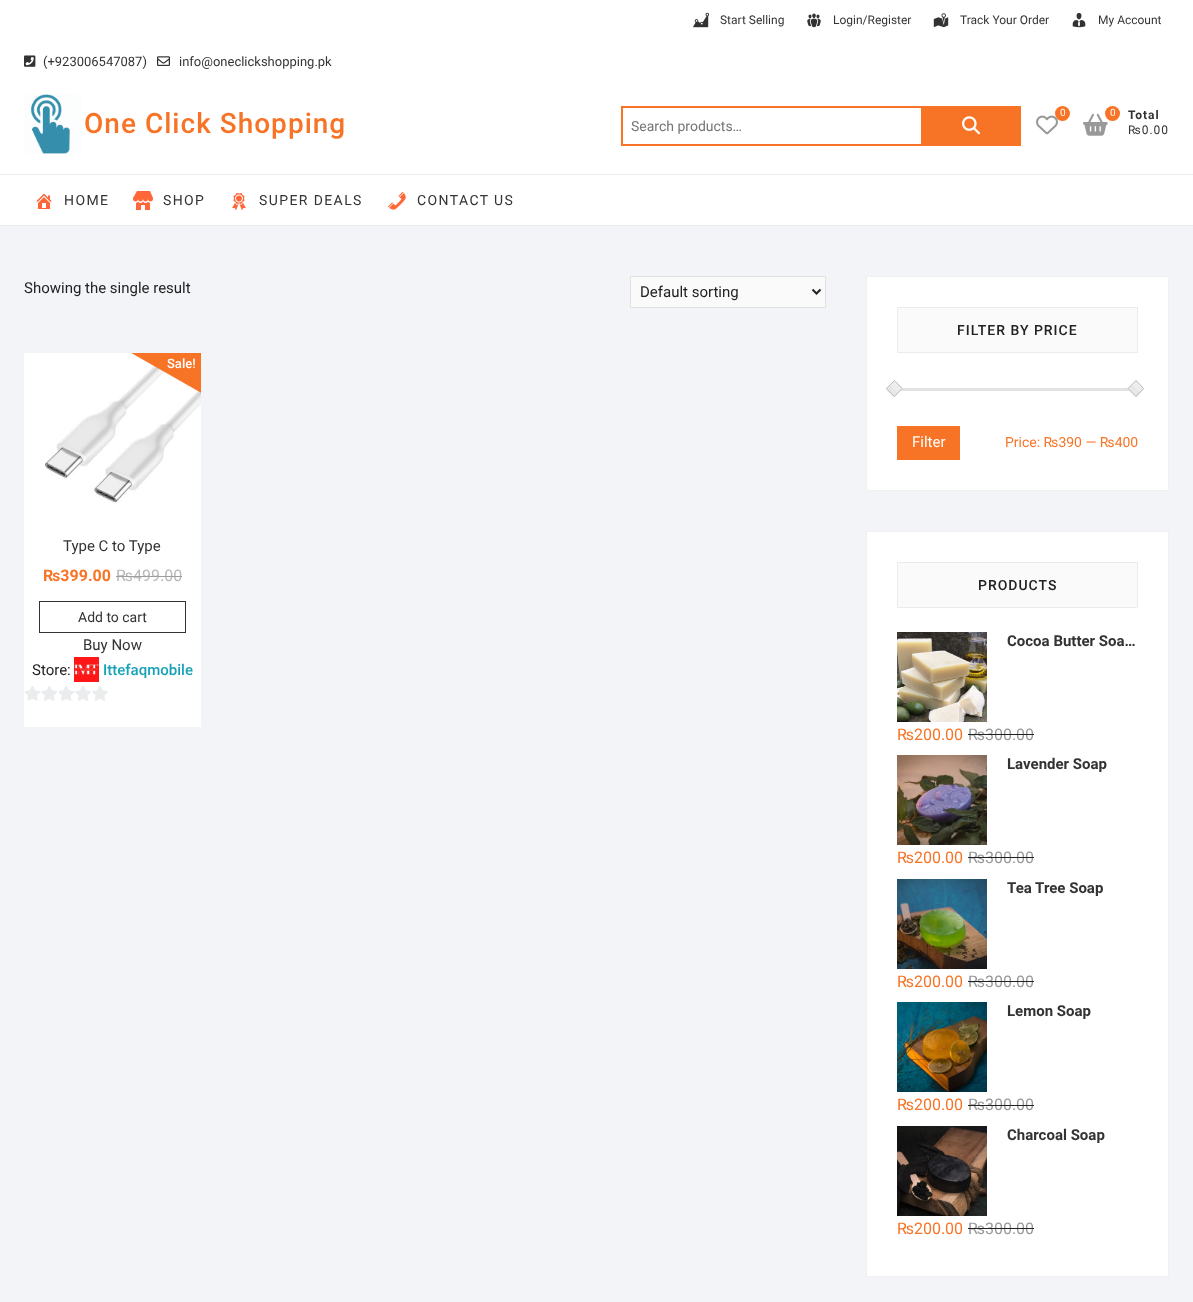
<!DOCTYPE html>
<meta charset="utf-8">
<style>body { margin: 0 } canvas { display: block }</style>
<canvas id="canvas" width="1193" height="1302"></canvas>
<script type="module">
  const canvas = document.getElementById("canvas");
  const g = canvas.getContext("2d");
  g.miterLimit = 4;
  g.fontKerning = "normal";
  function drawText(s, x, y, [font, color]) {
    g.font = font;
    g.fillStyle = color;
    g.fillText(s, x, y);
  }
  function fillBox(x, y, w, h, color) {
    g.fillStyle = color;
    g.fillRect(x, y, w, h);
  }
  async function drawPicture(src, x, y, w, h) {
    const img = new Image();
    img.src = src;
    await img.decode();
    g.drawImage(img, x, y, w, h);
  }

  const s1 = ["12px Roboto", "#333333"];
  const s2 = ["13px Roboto", "#333333"];
  const s3 = ["500 28px Roboto", "#F77426"];
  const s4 = ["14px Roboto", "#757575"];
  const s5 = ["10px Roboto", "#FFFFFF"];
  const s6 = ["bold 12px Roboto", "#333333"];
  const s7 = ["14px Roboto", "#333333"];
  const s8 = ["15px Roboto", "#222222"];
  const s9 = ["500 13px Roboto", "#FFFFFF"];
  const s10 = ["15px Roboto", "#333333"];
  const s11 = ["bold 16px Roboto", "#F77426"];
  const s12 = ["16px Roboto", "#B8B8B8"];
  const s13 = ["500 15px Roboto", "#17A2B8"];
  const s14 = ["500 14px Roboto", "#222222"];
  const s15 = ["15px Roboto", "#FFFFFF"];
  const s16 = ["14px Roboto", "#F77426"];
  const s17 = ["bold 15px Roboto", "#333333"];
  const s18 = ["16px Roboto", "#F77426"];
  const s19 = ["16px Roboto", "#999999"];

  fillBox(0, 0, 1193, 1302, "#F3F4F8");
  fillBox(0, 0, 1193, 225, "#FFFFFF");
  await drawPicture("pic1.png", 693, 12, 17, 16);
  drawText("Start Selling", 720, 24, s1);
  await drawPicture("pic2.png", 807, 13, 14, 15);
  drawText("Login/Register", 833, 24, s1);
  await drawPicture("pic3.png", 933, 13, 16, 15);
  drawText("Track Your Order", 960, 24, s1);
  await drawPicture("pic4.png", 1072, 13, 14, 15);
  drawText("My Account", 1098, 24, s1);
  await drawPicture("pic5.png", 24, 55, 12, 12);
  drawText("(+923006547087)", 43, 66, s2);
  await drawPicture("pic6.png", 157, 56, 13, 10);
  drawText("info@oneclickshopping.pk", 179, 66, s2);
  await drawPicture("pic7.png", 24, 94, 58, 60);
  g.letterSpacing = "1px";
  drawText("One Click Shopping", 84, 133, s3);
  fillBox(621, 106, 300, 2, "#F77426");
  fillBox(621, 144, 300, 2, "#F77426");
  fillBox(621, 106, 2, 40, "#F77426");
  g.letterSpacing = "0px";
  drawText("Search products…", 631, 131, s4);
  fillBox(921, 106, 100, 40, "#F77426");
  await drawPicture("pic8.png", 962, 116, 18, 19);
  await drawPicture("pic9.png", 1036, 115, 22, 20);
  g.beginPath();
  g.arc(1062.5, 113.5, 7.5, 0, Math.PI * 2);
  g.fill();
  drawText("0", 1060, 116, s5);
  await drawPicture("pic10.png", 1083, 113, 25, 23);
  g.fillStyle = "#F77426";
  g.beginPath();
  g.arc(1112.5, 113.5, 7.5, 0, Math.PI * 2);
  g.fill();
  drawText("0", 1110, 116, s5);
  g.letterSpacing = "1px";
  drawText("Total", 1128, 119, s6);
  drawText("₨0.00", 1128, 134, s1);
  fillBox(0, 174, 1193, 1, "#EBEBEB");
  fillBox(0, 225, 1193, 1, "#EBEBEB");
  await drawPicture("pic11.png", 36, 193, 16, 16);
  g.letterSpacing = "1.4px";
  drawText("HOME", 64, 205, s7);
  await drawPicture("pic12.png", 133, 191, 20, 19);
  drawText("SHOP", 163, 205, s7);
  await drawPicture("pic13.png", 232, 193, 14, 17);
  drawText("SUPER DEALS", 259, 205, s7);
  await drawPicture("pic14.png", 388, 191, 18, 19);
  drawText("CONTACT US", 417, 205, s7);
  g.letterSpacing = "0px";
  drawText("Showing the single result", 24, 293, s8);
  g.fillStyle = "#FAFAFA";
  g.beginPath();
  g.rect(630.5, 276.5, 195, 31);
  g.fill();
  g.strokeStyle = "#E1E1E1";
  g.stroke();
  g.beginPath();
  g.moveTo(812.5, 289.5);
  g.lineTo(816.5, 293.5);
  g.lineTo(820.5, 289.5);
  g.strokeStyle = "#222222";
  g.lineWidth = 2;
  g.stroke();
  drawText("Default sorting", 640, 297, s8);
  fillBox(24, 353, 177, 374, "#FFFFFF");
  await drawPicture("pic15.png", 44, 353, 157, 150);
  g.save();
  g.beginPath();
  g.rect(24, 353, 177, 374);
  g.clip();
  g.fillStyle = "#F77426";
  g.beginPath();
  g.moveTo(112, 342);
  g.lineTo(152, 273);
  g.lineTo(243, 325);
  g.lineTo(203, 394);
  g.closePath();
  g.fill();
  g.restore();
  drawText("Sale!", 167, 368, s9);
  drawText("Type C to Type", 63, 551, s10);
  drawText("₨399.00", 43, 581, s11);
  drawText("₨", 116, 581, s12);
  fillBox(116, 576, 17, 1, "#9E9E9E");
  drawText("499.00", 133, 581, s12);
  fillBox(133, 576, 49, 1, "#9E9E9E");
  g.strokeStyle = "#333333";
  g.lineWidth = 1;
  g.strokeRect(39.5, 601.5, 146, 31);
  drawText("Add to cart", 78, 622, s7);
  drawText("Buy Now", 83, 650, s10);
  drawText("Store:", 32, 675, s8);
  await drawPicture("pic16.png", 74, 657, 25, 25);
  drawText("Ittefaqmobile", 103, 675, s13);
  await drawPicture("pic17.png", 24, 686, 84, 15);
  g.fillStyle = "#FFFFFF";
  g.beginPath();
  g.rect(866.5, 276.5, 302, 214);
  g.fill();
  g.strokeStyle = "#F0F0F0";
  g.stroke();
  g.fillStyle = "#FAFAFA";
  g.beginPath();
  g.rect(897.5, 307.5, 240, 45);
  g.fill();
  g.strokeStyle = "#EBEBEB";
  g.stroke();
  g.letterSpacing = "1px";
  drawText("FILTER BY PRICE", 957, 335, s14);
  fillBox(897, 388, 241, 3, "#E2E2E2");
  g.fillStyle = "#F4F4F4";
  g.beginPath();
  g.moveTo(894.5, 380);
  g.lineTo(903, 388.5);
  g.lineTo(894.5, 397);
  g.lineTo(886, 388.5);
  g.closePath();
  g.fill();
  await drawPicture("pic18.png", 886, 381, 16, 16);
  g.beginPath();
  g.moveTo(894.5, 380.5);
  g.lineTo(902, 388.5);
  g.lineTo(894.5, 396.5);
  g.lineTo(886.5, 388.5);
  g.closePath();
  g.strokeStyle = "#BDBDBD";
  g.stroke();
  g.beginPath();
  g.moveTo(1136, 380);
  g.lineTo(1144.5, 388.5);
  g.lineTo(1136, 397);
  g.lineTo(1127.5, 388.5);
  g.closePath();
  g.fill();
  await drawPicture("pic19.png", 1128, 381, 16, 16);
  g.beginPath();
  g.moveTo(1136, 380.5);
  g.lineTo(1143.5, 388.5);
  g.lineTo(1136, 396.5);
  g.lineTo(1128, 388.5);
  g.closePath();
  g.stroke();
  fillBox(897, 426, 63, 34, "#F77426");
  g.letterSpacing = "0px";
  drawText("Filter", 912, 447, s15);
  drawText("Price: ₨390 — ₨400", 1005, 447, s16);
  g.fillStyle = "#FFFFFF";
  g.beginPath();
  g.rect(866.5, 531.5, 302, 745);
  g.fill();
  g.strokeStyle = "#F0F0F0";
  g.stroke();
  g.fillStyle = "#FAFAFA";
  g.beginPath();
  g.rect(897.5, 562.5, 240, 45);
  g.fill();
  g.strokeStyle = "#EBEBEB";
  g.stroke();
  g.letterSpacing = "1px";
  drawText("PRODUCTS", 978, 590, s14);
  await drawPicture("pic20.png", 897, 632, 90, 90);
  g.letterSpacing = "0px";
  drawText("Cocoa Butter Soa…", 1007, 646, s17);
  drawText("₨200.00", 897, 740, s18);
  drawText("₨300.00", 968, 740, s19);
  fillBox(968, 734, 66, 1, "#222222");
  await drawPicture("pic21.png", 897, 755, 90, 90);
  drawText("Lavender Soap", 1007, 769, s17);
  drawText("₨200.00", 897, 863, s18);
  drawText("₨300.00", 968, 863, s19);
  fillBox(968, 857, 66, 1, "#222222");
  await drawPicture("pic22.png", 897, 879, 90, 90);
  drawText("Tea Tree Soap", 1007, 893, s17);
  drawText("₨200.00", 897, 987, s18);
  drawText("₨300.00", 968, 987, s19);
  fillBox(968, 981, 66, 1, "#222222");
  await drawPicture("pic23.png", 897, 1002, 90, 90);
  drawText("Lemon Soap", 1007, 1016, s17);
  drawText("₨200.00", 897, 1110, s18);
  drawText("₨300.00", 968, 1110, s19);
  fillBox(968, 1105, 66, 1, "#222222");
  await drawPicture("pic24.png", 897, 1126, 90, 90);
  drawText("Charcoal Soap", 1007, 1140, s17);
  drawText("₨200.00", 897, 1234, s18);
  drawText("₨300.00", 968, 1234, s19);
  fillBox(968, 1228, 66, 1, "#222222");
</script>
